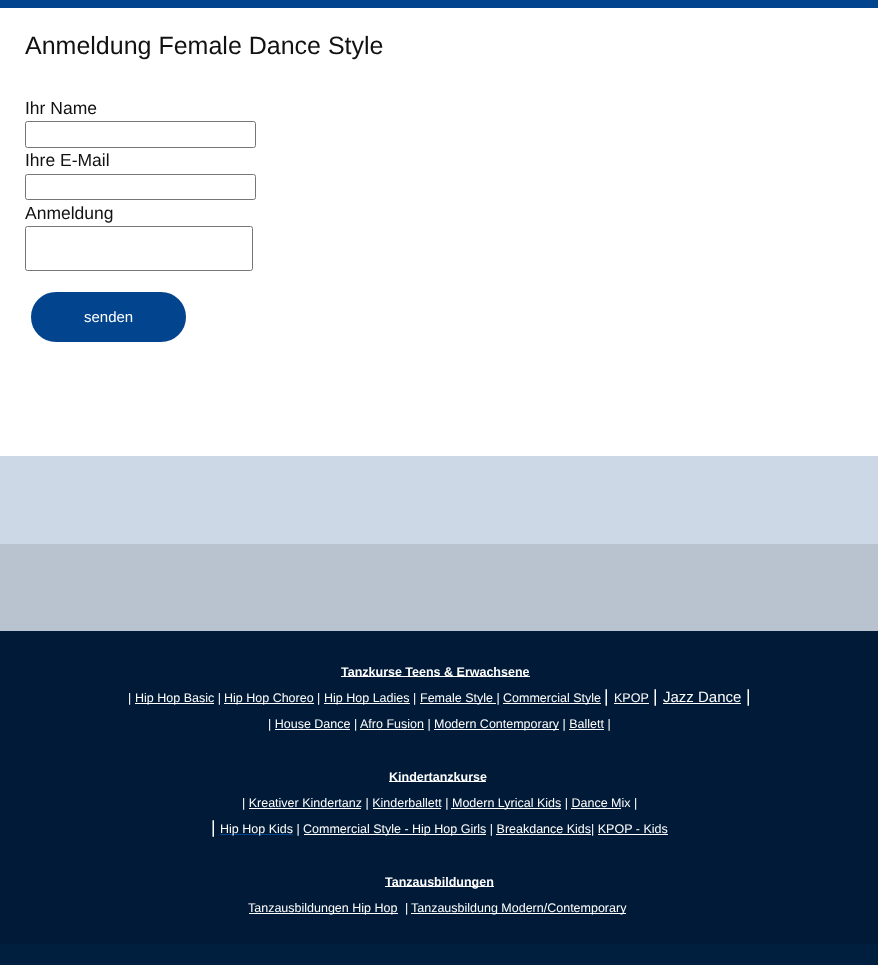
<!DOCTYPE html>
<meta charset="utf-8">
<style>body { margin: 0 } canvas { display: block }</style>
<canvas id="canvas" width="878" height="965"></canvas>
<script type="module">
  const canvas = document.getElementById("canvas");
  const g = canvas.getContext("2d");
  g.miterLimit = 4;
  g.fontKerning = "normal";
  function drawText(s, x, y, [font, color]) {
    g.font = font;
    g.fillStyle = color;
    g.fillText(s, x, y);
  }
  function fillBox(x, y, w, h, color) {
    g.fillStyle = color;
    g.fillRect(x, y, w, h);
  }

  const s1 = ["25px Liberation Sans", "#111111"];
  const s2 = ["17.5px Liberation Sans", "#111111"];
  const s3 = ["15px Liberation Sans", "#FFFFFF"];
  const s4 = ["bold 12.5px Liberation Sans", "#FFFFFF"];
  const s5 = ["12.5px Liberation Sans", "#FFFFFF"];
  const s6 = ["17.5px Liberation Sans", "#FFFFFF"];

  fillBox(0, 0, 878, 965, "#FFFFFF");
  fillBox(0, 0, 878, 8, "#02448E");
  drawText("Anmeldung Female Dance Style", 25, 54, s1);
  drawText("Ihr Name", 25, 114, s2);
  g.beginPath();
  g.roundRect(25.5, 121.5, 230, 26, 2);
  g.strokeStyle = "#767676";
  g.stroke();
  drawText("Ihre E-Mail", 25, 166, s2);
  g.beginPath();
  g.roundRect(25.5, 174.5, 230, 25, 2);
  g.stroke();
  drawText("Anmeldung", 25, 219, s2);
  g.beginPath();
  g.roundRect(25.5, 226.5, 227, 44, 2);
  g.stroke();
  g.fillStyle = "#02448E";
  g.beginPath();
  g.roundRect(29.5, 290.5, 158, 53, 26.5);
  g.fill();
  g.strokeStyle = "#FFFFFF";
  g.lineWidth = 3;
  g.stroke();
  drawText("senden", 84, 322, s3);
  fillBox(0, 456, 878, 88, "#CDD8E6");
  fillBox(0, 544, 878, 87, "#B9C2CF");
  fillBox(0, 631, 878, 313, "#001A37");
  fillBox(341, 676, 189, 1, "#FFFFFF");
  drawText("Tanzkurse Teens & Erwachsene", 341, 676, s4);
  drawText("|", 128, 702, s5);
  fillBox(135, 703, 79, 1, "#FFFFFF");
  drawText("Hip Hop Basic |", 135, 702, s5);
  fillBox(224, 703, 90, 1, "#FFFFFF");
  drawText("Hip Hop Choreo |", 224, 702, s5);
  fillBox(324, 703, 86, 1, "#FFFFFF");
  drawText("Hip Hop Ladies |", 324, 702, s5);
  fillBox(420, 703, 76, 1, "#FFFFFF");
  drawText("Female Style |", 420, 702, s5);
  fillBox(503, 703, 98, 1, "#FFFFFF");
  drawText("Commercial Style", 503, 702, s5);
  drawText("|", 604, 702, s6);
  drawText("KPOP", 614, 702, s5);
  fillBox(614, 703, 35, 1, "#FFFFFF");
  drawText("|", 653, 702, s6);
  drawText("Jazz Dance", 663, 702, s3);
  fillBox(663, 703, 78, 1, "#FFFFFF");
  drawText("|", 746, 702, s6);
  drawText("| House Dance", 268, 728, s5);
  fillBox(275, 729, 75, 1, "#FFFFFF");
  drawText("|", 354, 728, s5);
  fillBox(360, 729, 64, 1, "#FFFFFF");
  drawText("Afro Fusion |", 360, 728, s5);
  fillBox(434, 729, 125, 1, "#FFFFFF");
  drawText("Modern Contemporary | Ballett |", 434, 728, s5);
  fillBox(569, 729, 35, 1, "#FFFFFF");
  fillBox(389, 781, 97, 1, "#FFFFFF");
  drawText("Kindertanzkurse", 389, 781, s4);
  drawText("| Kreativer Kindertanz | Kinderballett |", 242, 807, s5);
  fillBox(249, 808, 112, 1, "#FFFFFF");
  fillBox(373, 808, 68, 1, "#FFFFFF");
  fillBox(451, 808, 110, 1, "#FFFFFF");
  drawText("Modern Lyrical Kids | Dance Mix |", 452, 807, s5);
  fillBox(571, 808, 50, 1, "#FFFFFF");
  drawText("|", 211, 833, s6);
  fillBox(220, 834, 73, 1, "#02448E");
  drawText("Hip Hop Kids |", 220, 833, s5);
  fillBox(304, 834, 182, 1, "#FFFFFF");
  drawText("Commercial Style - Hip Hop Girls | Breakdance Kids| KPOP - Kids", 303, 833, s5);
  fillBox(496, 834, 95, 1, "#FFFFFF");
  fillBox(598, 834, 70, 1, "#FFFFFF");
  fillBox(385, 886, 109, 1, "#FFFFFF");
  drawText("Tanzausbildungen", 385, 886, s4);
  fillBox(249, 913, 149, 1, "#FFFFFF");
  drawText("Tanzausbildungen Hip Hop", 248, 912, s5);
  drawText("|", 405, 912, s5);
  fillBox(411, 913, 215, 1, "#FFFFFF");
  drawText("Tanzausbildung Modern/Contemporary", 411, 912, s5);
  fillBox(0, 944, 878, 21, "#001E3E");
</script>
